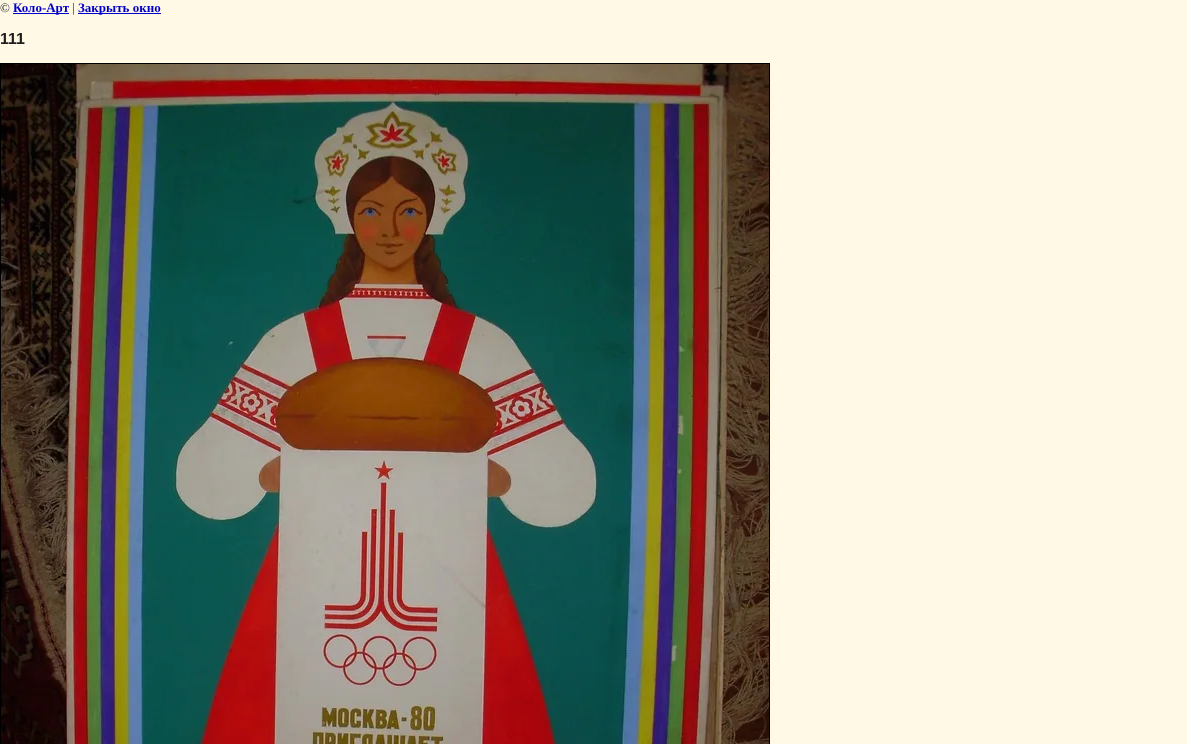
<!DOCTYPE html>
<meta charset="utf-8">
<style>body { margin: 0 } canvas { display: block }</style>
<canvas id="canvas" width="1187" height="744"></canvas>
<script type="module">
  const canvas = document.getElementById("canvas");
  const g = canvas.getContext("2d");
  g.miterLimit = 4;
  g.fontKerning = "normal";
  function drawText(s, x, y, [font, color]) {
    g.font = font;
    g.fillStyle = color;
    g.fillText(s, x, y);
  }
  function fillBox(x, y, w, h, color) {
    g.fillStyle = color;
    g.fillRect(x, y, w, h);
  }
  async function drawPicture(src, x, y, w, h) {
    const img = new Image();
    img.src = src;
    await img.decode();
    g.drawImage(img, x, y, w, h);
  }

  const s1 = ["13px Liberation Serif", "#1E1E1E"];
  const s2 = ["bold 13px Liberation Serif", "#0000CC"];
  const s3 = ["bold 16px Liberation Sans", "#1E1E1E"];

  fillBox(0, 0, 1187, 744, "#FFF9E5");
  drawText("©", 0, 12, s1);
  fillBox(13, 13, 56, 1, "#0000CC");
  drawText("Коло-Арт", 13, 12, s2);
  drawText("|", 72, 12, s1);
  fillBox(78, 13, 83, 1, "#0000CC");
  drawText("Закрыть окно", 78, 12, s2);
  drawText("111", 0, 44, s3);
  g.strokeStyle = "#000000";
  g.strokeRect(0.5, 63.5, 769, 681);
  await drawPicture("pic1.png", 1, 64, 768, 680);
</script>
